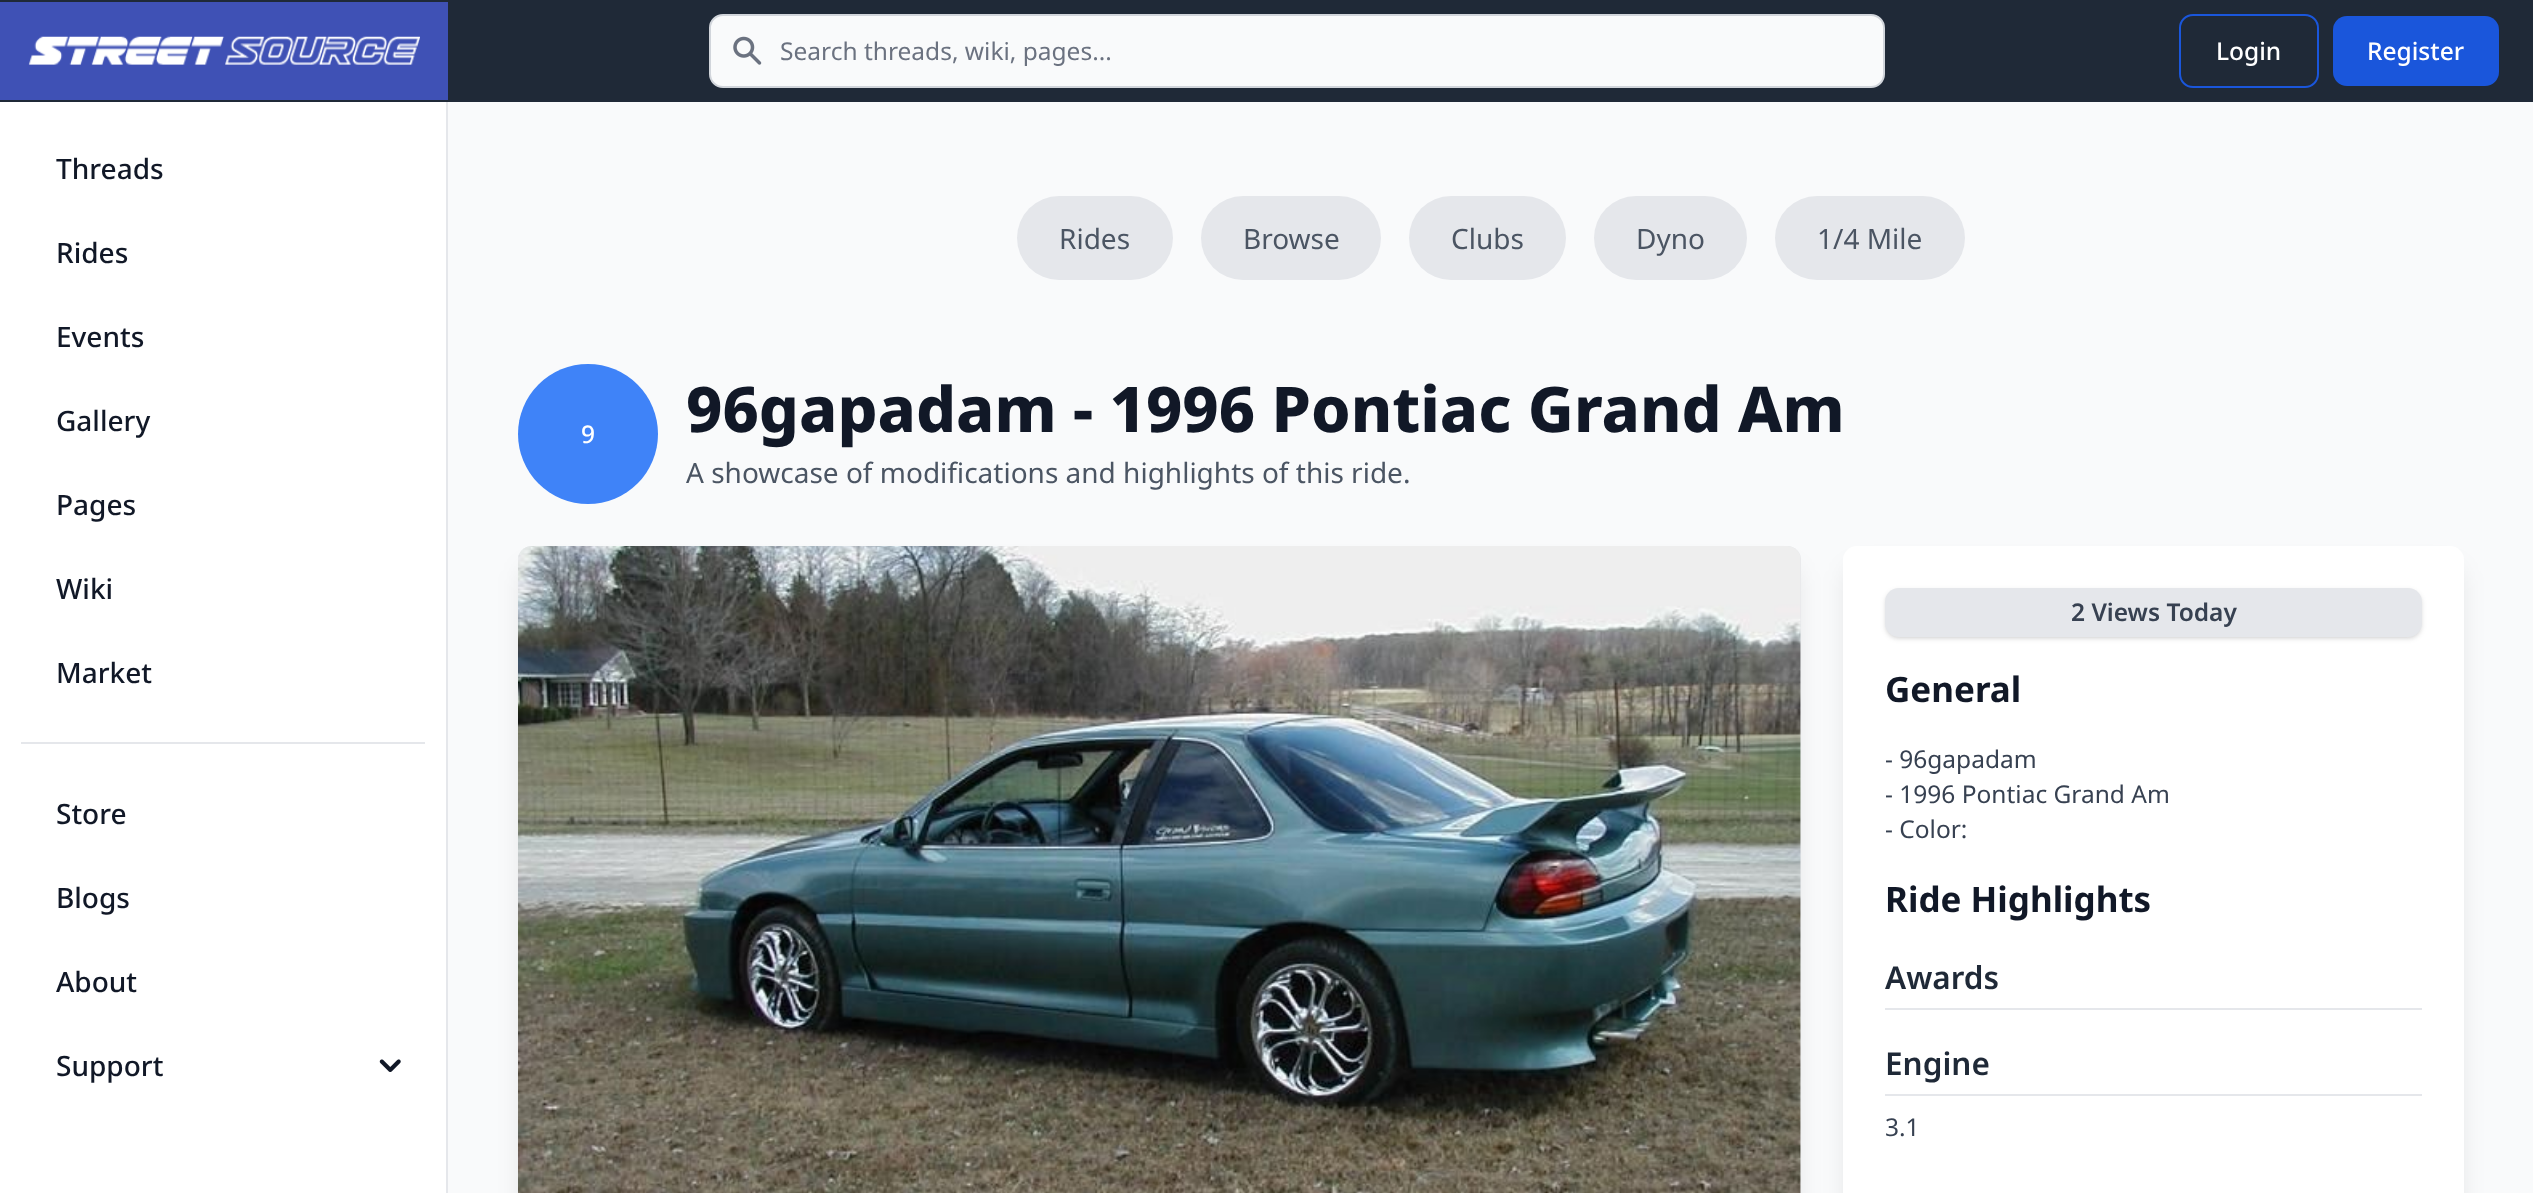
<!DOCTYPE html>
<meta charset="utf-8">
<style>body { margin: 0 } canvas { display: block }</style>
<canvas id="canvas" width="2533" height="1193"></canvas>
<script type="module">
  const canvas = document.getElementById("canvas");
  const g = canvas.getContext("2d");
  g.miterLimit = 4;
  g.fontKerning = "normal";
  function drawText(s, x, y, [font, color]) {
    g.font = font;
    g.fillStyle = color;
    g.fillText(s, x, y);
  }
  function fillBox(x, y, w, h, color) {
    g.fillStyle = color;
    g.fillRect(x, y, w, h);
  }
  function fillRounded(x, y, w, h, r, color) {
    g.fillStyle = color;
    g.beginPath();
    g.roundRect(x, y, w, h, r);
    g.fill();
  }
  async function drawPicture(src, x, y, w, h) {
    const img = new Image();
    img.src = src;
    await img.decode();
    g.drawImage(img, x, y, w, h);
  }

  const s1 = ["24.5px Noto Sans", "#6B7280"];
  const s2 = ["500 24.5px Noto Sans", "#FFFFFF"];
  const s3 = ["500 28px Noto Sans", "#111827"];
  const s4 = ["28px Noto Sans", "#4B5563"];
  const s5 = ["800 63px Noto Sans", "#111827"];
  const s6 = ["600 24.5px Noto Sans", "#374151"];
  const s7 = ["bold 35px Noto Sans", "#111827"];
  const s8 = ["24.5px Noto Sans", "#374151"];
  const s9 = ["600 31.5px Noto Sans", "#1F2937"];

  fillBox(0, 0, 2533, 1193, "#F9FAFB");
  fillBox(0, 0, 2533, 102, "#1F2937");
  fillBox(0, 2, 448, 98, "#3F51B5");
  await drawPicture("pic1.png", 28, 36, 392, 29);
  g.fillStyle = "#F9FAFB";
  g.beginPath();
  g.roundRect(710, 15, 1174, 72, 13);
  g.fill();
  g.strokeStyle = "#D1D5DB";
  g.lineWidth = 2;
  g.stroke();
  await drawPicture("pic2.png", 733, 36, 29, 29);
  drawText("Search threads, wiki, pages...", 780, 60, s1);
  g.beginPath();
  g.roundRect(2180, 15, 138, 72, 13);
  g.strokeStyle = "#1A56DB";
  g.stroke();
  drawText("Login", 2216, 60, s2);
  fillRounded(2333, 16, 166, 70, 14, "#1A56DB");
  drawText("Register", 2367, 60, s2);
  fillBox(0, 102, 446, 1091, "#FFFFFF");
  fillBox(446, 102, 2, 1091, "#E5E7EB");
  drawText("Threads", 56, 179, s3);
  drawText("Rides", 56, 263, s3);
  drawText("Events", 56, 347, s3);
  drawText("Gallery", 56, 431, s3);
  drawText("Pages", 56, 515, s3);
  drawText("Wiki", 56, 599, s3);
  drawText("Market", 56, 683, s3);
  fillBox(21, 742, 404, 2, "#E5E7EB");
  drawText("Store", 56, 824, s3);
  drawText("Blogs", 56, 908, s3);
  drawText("About", 56, 992, s3);
  drawText("Support", 56, 1076, s3);
  await drawPicture("pic3.png", 379, 1059, 22, 13);
  fillRounded(1017, 196, 156, 84, 42, "#E5E7EB");
  drawText("Rides", 1059, 249, s4);
  fillRounded(1201, 196, 180, 84, 42, "#E5E7EB");
  drawText("Browse", 1243, 249, s4);
  fillRounded(1409, 196, 157, 84, 42, "#E5E7EB");
  drawText("Clubs", 1451, 249, s4);
  fillRounded(1594, 196, 153, 84, 42, "#E5E7EB");
  drawText("Dyno", 1636, 249, s4);
  fillRounded(1775, 196, 190, 84, 42, "#E5E7EB");
  drawText("1/4 Mile", 1817, 249, s4);
  g.fillStyle = "#3F83F8";
  g.beginPath();
  g.arc(588, 434, 70, 0, Math.PI * 2);
  g.fill();
  drawText("9", 581, 443, s2);
  drawText("96gapadam - 1996 Pontiac Grand Am", 686, 432, s5);
  drawText("A showcase of modifications and highlights of this ride.", 686, 483, s4);
  g.fillStyle = "rgba(0, 0, 0, 0.1)";
  g.filter = "blur(13px)";
  g.beginPath();
  g.roundRect(523, 569, 1273, 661, 9);
  g.fill();
  g.filter = "none";
  fillRounded(518, 546, 1283, 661, 14, "#E5E7EB");
  await drawPicture("pic4.png", 518, 546, 1283, 647);
  g.fillStyle = "rgba(0, 0, 0, 0.1)";
  g.filter = "blur(13px)";
  g.beginPath();
  g.roundRect(1848, 569, 611, 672, 9);
  g.fill();
  g.filter = "none";
  fillRounded(1843, 546, 621, 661, 14, "#FFFFFF");
  g.fillStyle = "rgba(0, 0, 0, 0.1)";
  g.filter = "blur(2px)";
  g.beginPath();
  g.roundRect(1887, 592, 533, 45, 12);
  g.fill();
  g.filter = "none";
  g.filter = "blur(2.5px)";
  g.beginPath();
  g.roundRect(1885, 590, 537, 49, 14);
  g.fill();
  g.filter = "none";
  fillRounded(1885, 588, 537, 49, 14, "#E5E7EB");
  drawText("2 Views Today", 2071, 621, s6);
  drawText("General", 1885, 702, s7);
  drawText("- 96gapadam", 1885, 768, s8);
  drawText("- 1996 Pontiac Grand Am", 1885, 803, s8);
  drawText("- Color:", 1885, 838, s8);
  drawText("Ride Highlights", 1885, 912, s7);
  fillBox(1885, 1008, 537, 2, "#E5E7EB");
  drawText("Awards", 1885, 989, s9);
  fillBox(1885, 1094, 537, 2, "#E5E7EB");
  drawText("Engine", 1885, 1075, s9);
  drawText("3.1", 1885, 1136, s8);
</script>
